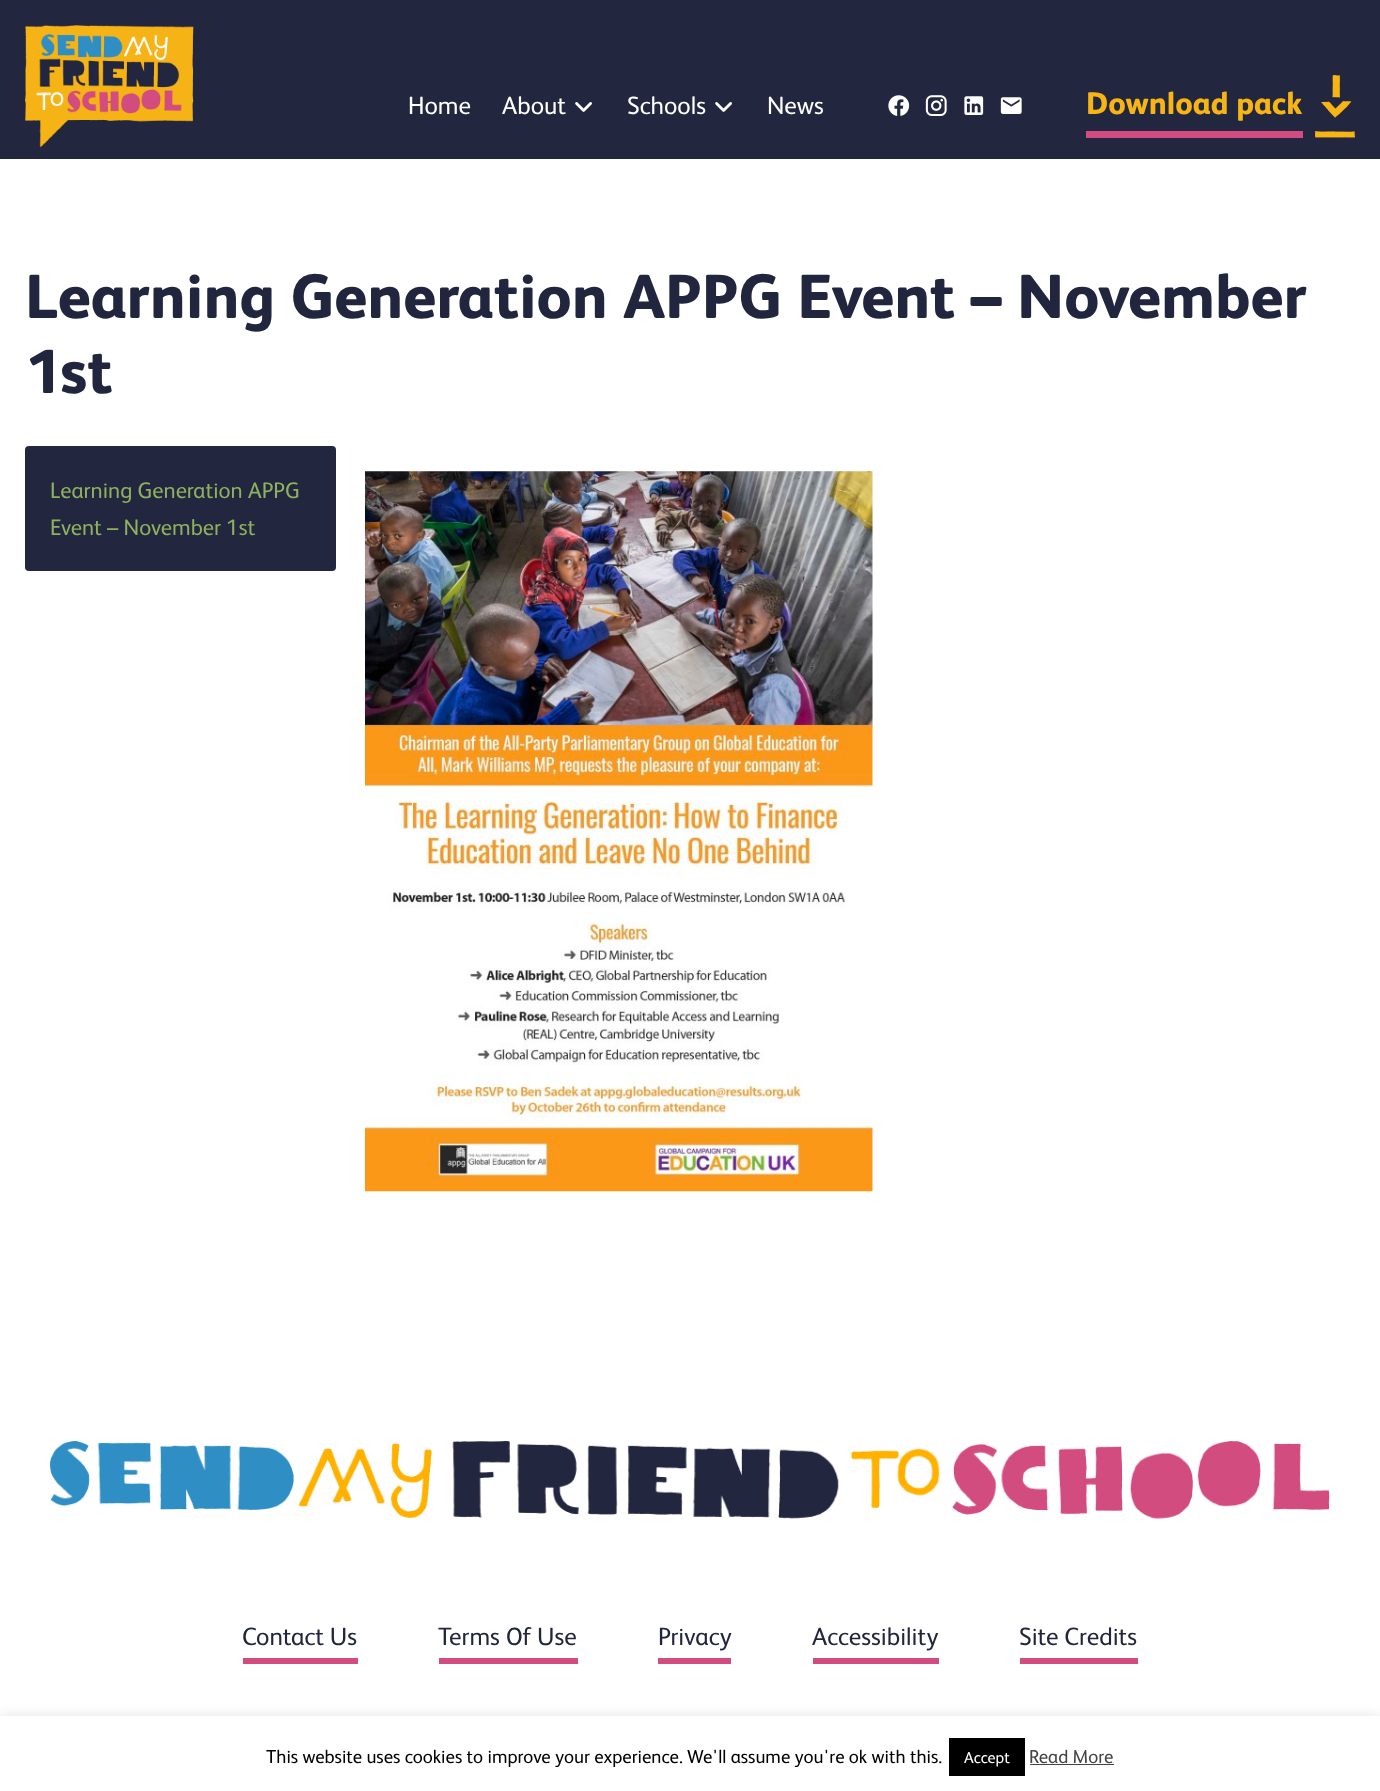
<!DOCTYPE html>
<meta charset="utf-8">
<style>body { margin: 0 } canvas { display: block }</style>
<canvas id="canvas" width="1380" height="1791"></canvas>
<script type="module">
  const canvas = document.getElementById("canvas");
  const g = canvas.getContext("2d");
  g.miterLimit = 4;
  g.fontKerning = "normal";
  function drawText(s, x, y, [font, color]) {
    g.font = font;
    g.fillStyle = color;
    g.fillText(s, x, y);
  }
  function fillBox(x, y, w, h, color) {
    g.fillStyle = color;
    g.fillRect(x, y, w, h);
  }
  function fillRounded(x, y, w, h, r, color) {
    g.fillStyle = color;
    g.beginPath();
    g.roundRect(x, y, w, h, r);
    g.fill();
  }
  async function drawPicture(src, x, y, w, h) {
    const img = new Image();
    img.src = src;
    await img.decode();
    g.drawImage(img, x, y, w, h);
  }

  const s1 = ["25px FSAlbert", "#FFFFFF"];
  const s2 = ["800 31.25px FSAlbert", "#F6B415"];
  const s3 = ["800 62.5px FSAlbert", "#21263E"];
  const s4 = ["22.5px FSAlbert", "#8EB05F"];
  const s5 = ["25px FSAlbert", "#21263E"];
  const s6 = ["18.75px FSAlbert", "#000000"];
  const s7 = ["16px FSAlbert", "#FFFFFF"];
  const s8 = ["18.75px FSAlbert", "#444444"];

  fillBox(0, 0, 1380, 1791, "#FFFFFF");
  fillBox(0, 0, 1380, 159, "#22263E");
  await drawPicture("pic1.png", 25, 25, 169, 123);
  drawText("Home", 408, 114, s1);
  drawText("About", 502, 114, s1);
  await drawPicture("pic2.png", 575, 102, 17, 10);
  drawText("Schools", 627, 114, s1);
  await drawPicture("pic2.png", 715, 102, 17, 10);
  drawText("News", 767, 114, s1);
  await drawPicture("pic3.png", 888, 95, 22, 21);
  await drawPicture("pic4.png", 925, 95, 22, 21);
  await drawPicture("pic5.png", 964, 96, 20, 19);
  await drawPicture("pic6.png", 1000, 97, 22, 17);
  fillBox(1086, 131, 217, 7, "#D24C80");
  drawText("Download pack", 1086, 114, s2);
  await drawPicture("pic7.png", 1315, 75, 40, 63);
  drawText("Learning Generation APPG Event – November", 25, 318, s3);
  drawText("1st", 25, 393, s3);
  fillRounded(25, 446, 311, 125, 4, "#22263E");
  drawText("Learning Generation APPG", 50, 498, s4);
  drawText("Event – November 1st", 50, 535, s4);
  await drawPicture("pic8.png", 365, 471, 508, 721);
  await drawPicture("pic9.png", 50, 1441, 1280, 78);
  drawText("Contact Us", 242, 1645, s5);
  fillBox(243, 1658, 115, 6, "#D24C80");
  drawText("Terms Of Use", 438, 1645, s5);
  fillBox(439, 1658, 139, 6, "#D24C80");
  drawText("Privacy", 658, 1645, s5);
  fillBox(658, 1658, 73, 6, "#D24C80");
  drawText("Accessibility", 812, 1645, s5);
  fillBox(813, 1658, 126, 6, "#D24C80");
  drawText("Site Credits", 1019, 1645, s5);
  fillBox(1020, 1658, 118, 6, "#D24C80");
  g.fillStyle = "rgba(172, 171, 171, 0.3)";
  g.filter = "blur(6px)";
  g.beginPath();
  g.rect(0, 1715, 1380, 75);
  g.fill();
  g.filter = "none";
  fillBox(0, 1716, 1380, 75, "#FFFFFF");
  drawText("This website uses cookies to improve your experience. We'll assume you're ok with this.", 266, 1763, s6);
  fillBox(949, 1738, 76, 38, "#000000");
  drawText("Accept", 964, 1763, s7);
  drawText("Read More", 1029, 1763, s8);
  fillBox(1030, 1764, 84, 1, "#444444");
</script>
